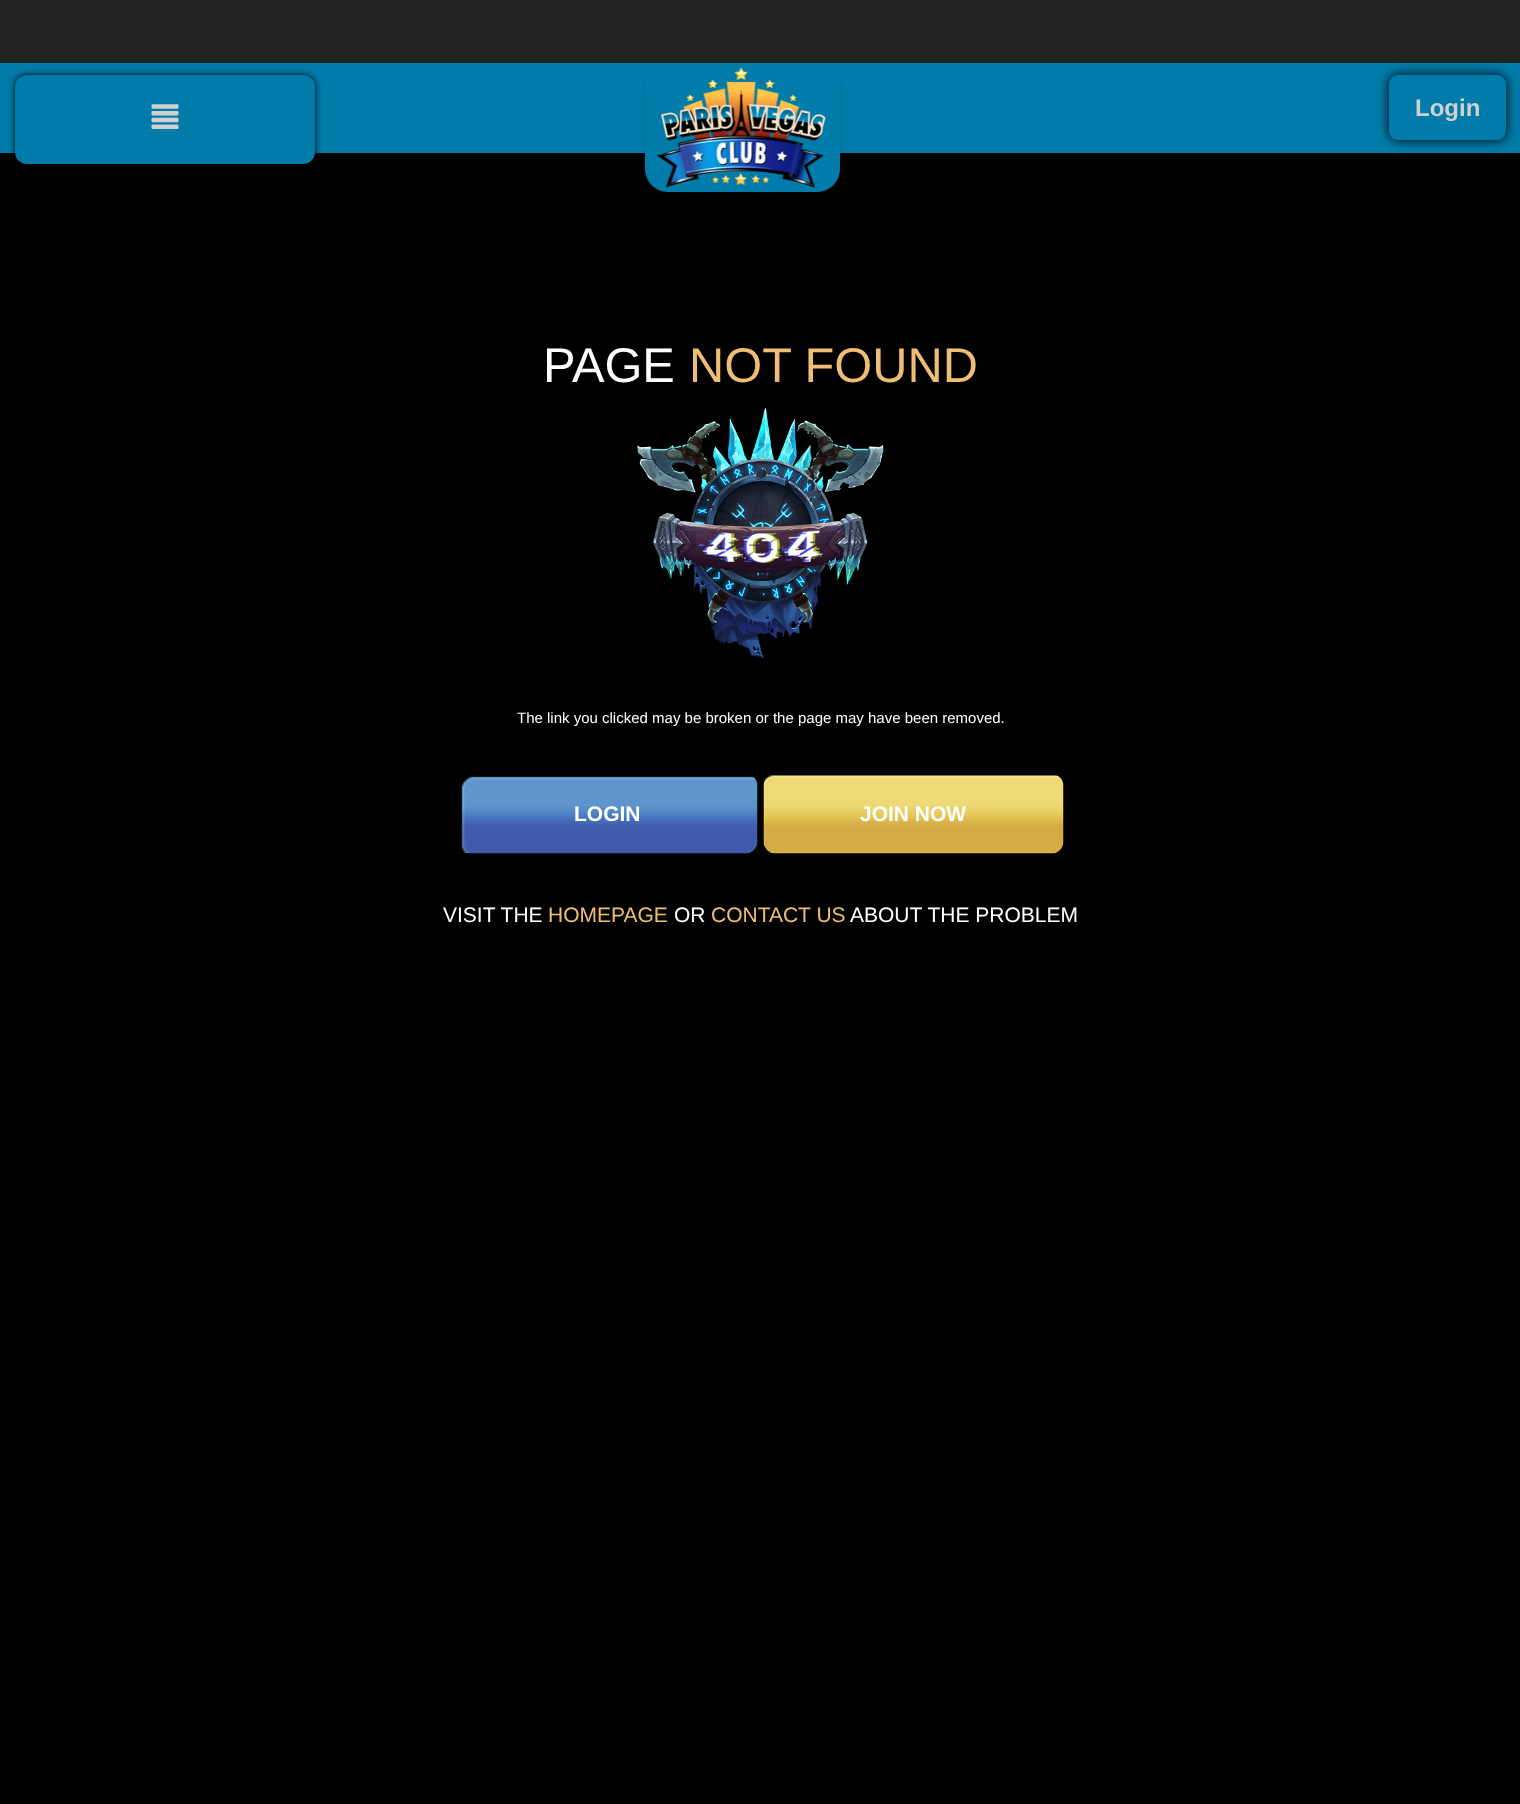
<!DOCTYPE html>
<meta charset="utf-8">
<style>body { margin: 0 } canvas { display: block }</style>
<canvas id="canvas" width="1520" height="1804"></canvas>
<script type="module">
  const canvas = document.getElementById("canvas");
  const g = canvas.getContext("2d");
  g.miterLimit = 4;
  g.fontKerning = "normal";
  function drawText(s, x, y, [font, color]) {
    g.font = font;
    g.fillStyle = color;
    g.fillText(s, x, y);
  }
  function fillBox(x, y, w, h, color) {
    g.fillStyle = color;
    g.fillRect(x, y, w, h);
  }
  function fillRounded(x, y, w, h, r, color) {
    g.fillStyle = color;
    g.beginPath();
    g.roundRect(x, y, w, h, r);
    g.fill();
  }
  async function drawPicture(src, x, y, w, h) {
    const img = new Image();
    img.src = src;
    await img.decode();
    g.drawImage(img, x, y, w, h);
  }

  const s1 = ["bold 24px Liberation Sans", "#D0D0D0"];
  const s2 = ["48.75px Liberation Sans", "#FFFFFF"];
  const s3 = ["48.75px Liberation Sans", "#EFBE73"];
  const s4 = ["15px Liberation Sans", "#FFFFFF"];
  const s5 = ["bold 21px Liberation Sans", "#FFFFFF"];
  const s6 = ["21px Liberation Sans", "#FFFFFF"];
  const s7 = ["21px Liberation Sans", "#EFBE73"];

  fillBox(0, 0, 1520, 1804, "#000000");
  fillBox(0, 0, 1520, 63, "#222222");
  fillBox(0, 63, 1520, 90, "#007BAA");
  g.fillStyle = "#000000";
  g.filter = "blur(3px)";
  g.beginPath();
  g.roundRect(15, 75, 300, 89, 12);
  g.fill();
  g.filter = "none";
  fillRounded(15, 75, 300, 89, 12, "#007BAA");
  await drawPicture("pic1.png", 151, 104, 28, 25);
  g.fillStyle = "#000000";
  g.filter = "blur(4px)";
  g.beginPath();
  g.roundRect(651, 75, 183, 117, 17);
  g.fill();
  g.filter = "none";
  g.fillStyle = "#007BAA";
  g.beginPath();
  g.roundRect(645, 63, 195, 129, [0, 0, 23, 23]);
  g.fill();
  await drawPicture("pic2.png", 657, 67, 169, 121);
  g.fillStyle = "#000000";
  g.filter = "blur(6px)";
  g.beginPath();
  g.roundRect(1389, 75, 117, 65, 9);
  g.fill();
  g.filter = "none";
  fillRounded(1389, 75, 117, 65, 9, "#007BAA");
  drawText("Login", 1415, 116, s1);
  drawText("PAGE", 543, 382, s2);
  drawText("NOT FOUND", 689, 382, s3);
  await drawPicture("pic3.png", 637, 408, 247, 251);
  drawText("The link you clicked may be broken or the page may have been removed.", 517, 723, s4);
  await drawPicture("pic4.png", 461, 776, 297, 78);
  drawText("LOGIN", 574, 821, s5);
  await drawPicture("pic5.png", 763, 775, 301, 79);
  drawText("JOIN NOW", 860, 821, s5);
  drawText("VISIT THE", 443, 922, s6);
  drawText("HOMEPAGE", 548, 922, s7);
  drawText("OR", 674, 922, s6);
  drawText("CONTACT US", 711, 922, s7);
  drawText("ABOUT THE PROBLEM", 850, 922, s6);
</script>
